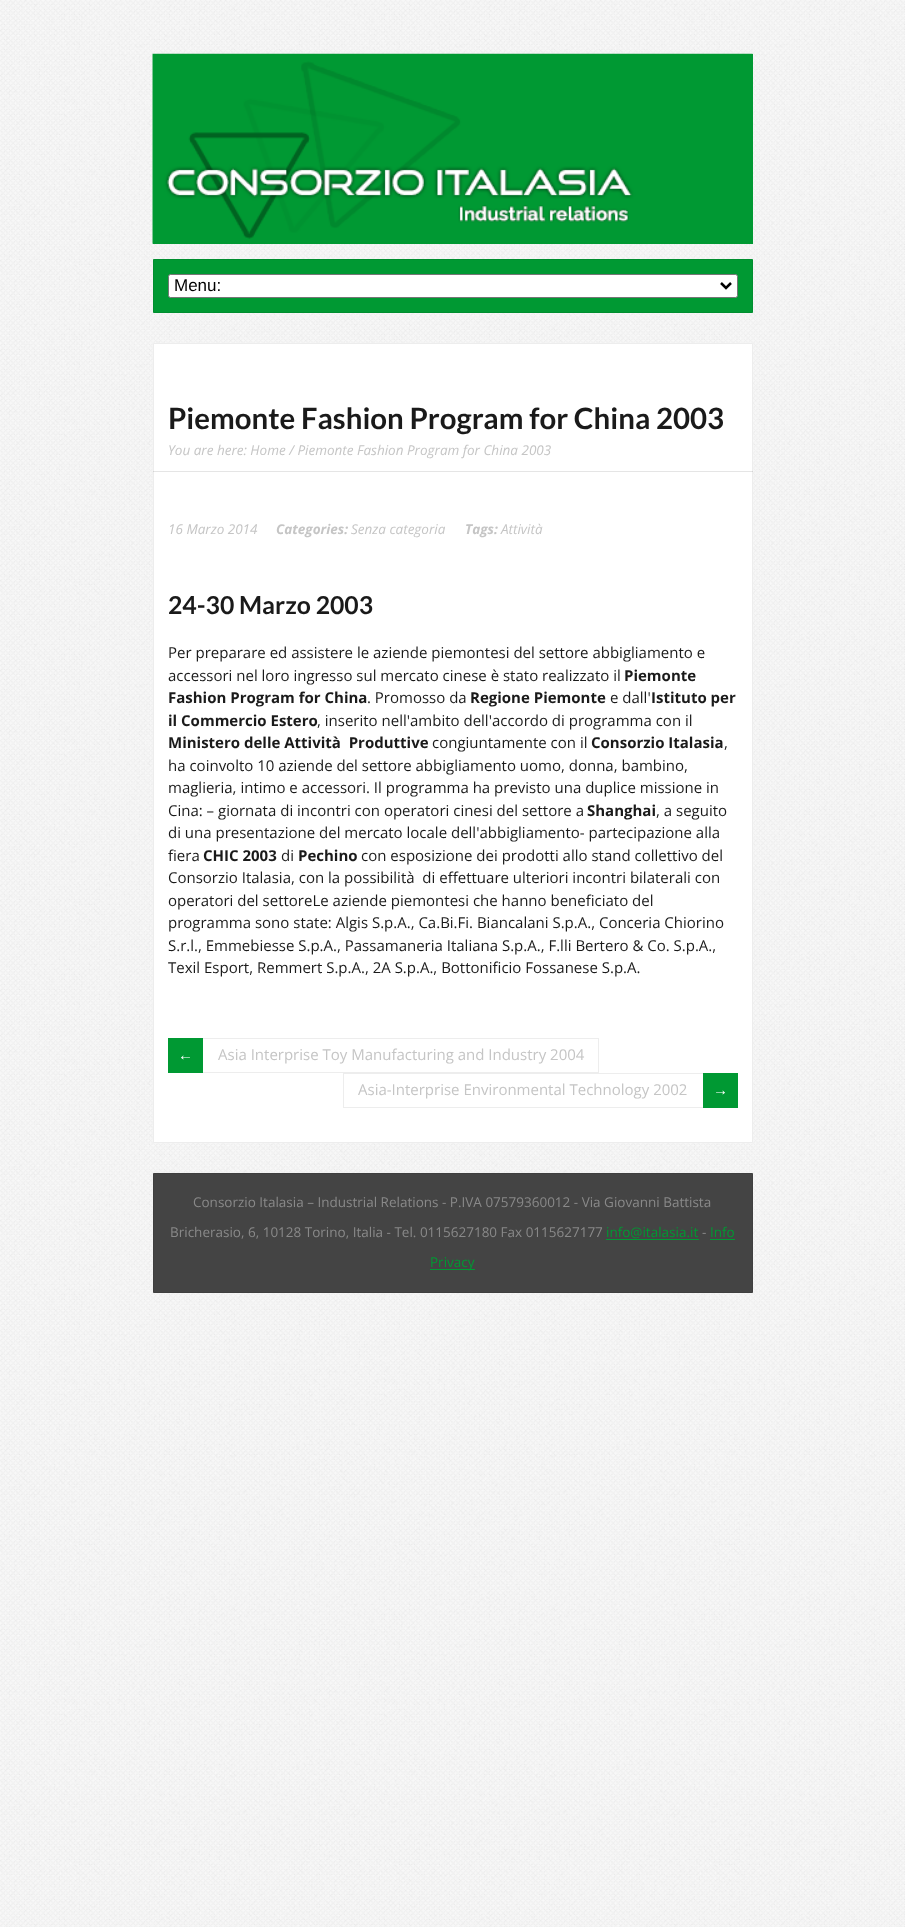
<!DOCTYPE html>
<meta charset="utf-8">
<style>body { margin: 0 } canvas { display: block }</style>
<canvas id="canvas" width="905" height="1927"></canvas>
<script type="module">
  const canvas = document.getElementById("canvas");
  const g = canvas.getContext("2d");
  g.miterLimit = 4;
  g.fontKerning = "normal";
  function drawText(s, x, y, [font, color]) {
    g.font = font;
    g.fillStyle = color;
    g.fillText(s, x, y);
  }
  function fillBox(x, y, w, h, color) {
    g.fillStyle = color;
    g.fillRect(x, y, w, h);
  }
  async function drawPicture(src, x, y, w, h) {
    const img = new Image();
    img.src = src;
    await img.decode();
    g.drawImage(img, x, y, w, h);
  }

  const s1 = ["17px Liberation Sans", "#000000"];
  const s2 = ["bold 29.4px Lato", "#1A1A1A"];
  const s3 = ["italic 13.5px Open Sans", "#C5C5C5"];
  const s4 = ["italic bold 13.5px Open Sans", "#C5C5C5"];
  const s5 = ["bold 24.75px Lato", "#1A1A1A"];
  const s6 = ["15px Open Sans", "#1A1A1A"];
  const s7 = ["bold 15px Open Sans", "#1A1A1A"];
  const s8 = ["15px Liberation Serif", "#FFFFFF"];
  const s9 = ["15px Open Sans", "#C5C5C5"];
  const s10 = ["13.5px Open Sans", "#898989"];
  const s11 = ["13.5px Open Sans", "#009933"];

  fillBox(0, 0, 905, 1927, "#FFFFFF");
  await drawPicture("pic1.png", 0, 0, 905, 1927);
  fillBox(153, 54, 600, 190, "#009933");
  await drawPicture("pic2.png", 152, 53, 601, 191);
  g.beginPath();
  g.rect(153.5, 259.5, 599, 53);
  g.fill();
  g.strokeStyle = "#008E2F";
  g.stroke();
  g.fillStyle = "#FFFFFF";
  g.beginPath();
  g.roundRect(168.5, 274.5, 569, 23, 2);
  g.fill();
  g.strokeStyle = "#767676";
  g.stroke();
  g.beginPath();
  g.moveTo(721, 283);
  g.lineTo(726, 288);
  g.lineTo(731, 283);
  g.strokeStyle = "#000000";
  g.lineWidth = 2.5;
  g.stroke();
  drawText("Menu:", 174, 291, s1);
  g.fillStyle = "#FFFFFF";
  g.beginPath();
  g.rect(153.5, 343.5, 599, 799);
  g.fill();
  g.strokeStyle = "#EDEDED";
  g.lineWidth = 1;
  g.stroke();
  drawText("Piemonte Fashion Program for China 2003", 168, 429, s2);
  drawText("You are here: Home / Piemonte Fashion Program for China 2003", 168, 455, s3);
  fillBox(153, 471, 600, 1, "rgba(0, 0, 0, 0.1)");
  drawText("16 Marzo 2014", 168, 534, s3);
  drawText("Categories:", 276, 534, s4);
  drawText("Senza categoria", 351, 534, s3);
  drawText("Tags:", 465, 534, s4);
  drawText("Attività", 501, 534, s3);
  drawText("24-30 Marzo 2003", 168, 614, s5);
  drawText("Per preparare ed assistere le aziende piemontesi del settore abbigliamento e", 168, 658, s6);
  drawText("accessori nel loro ingresso sul mercato cinese è stato realizzato il", 168, 681, s6);
  drawText("Piemonte", 624, 681, s7);
  drawText("Fashion Program for China", 168, 703, s7);
  drawText(". Promosso da", 367, 703, s6);
  drawText("Regione Piemonte", 470, 703, s7);
  drawText("e dall'", 610, 703, s6);
  drawText("Istituto per", 651, 703, s7);
  drawText("il Commercio Estero", 168, 726, s7);
  drawText(", inserito nell'ambito dell'accordo di programma con il", 317, 726, s6);
  drawText("Ministero delle Attività  Produttive", 168, 748, s7);
  drawText("congiuntamente con il", 432, 748, s6);
  drawText("Consorzio Italasia", 591, 748, s7);
  drawText(",", 724, 748, s6);
  drawText("ha coinvolto 10 aziende del settore abbigliamento uomo, donna, bambino,", 168, 771, s6);
  drawText("maglieria, intimo e accessori. Il programma ha previsto una duplice missione in", 168, 793, s6);
  drawText("Cina: – giornata di incontri con operatori cinesi del settore a", 168, 816, s6);
  drawText("Shanghai", 587, 816, s7);
  drawText(", a seguito", 656, 816, s6);
  drawText("di una presentazione del mercato locale dell'abbigliamento- partecipazione alla", 168, 838, s6);
  drawText("fiera", 168, 861, s6);
  drawText("CHIC 2003", 203, 861, s7);
  drawText("di", 281, 861, s6);
  drawText("Pechino", 298, 861, s7);
  drawText("con esposizione dei prodotti allo stand collettivo del", 361, 861, s6);
  drawText("Consorzio Italasia, con la possibilità  di effettuare ulteriori incontri bilaterali con", 168, 883, s6);
  drawText("operatori del settoreLe aziende piemontesi che hanno beneficiato del", 168, 906, s6);
  drawText("programma sono state: Algis S.p.A., Ca.Bi.Fi. Biancalani S.p.A., Conceria Chiorino", 168, 928, s6);
  drawText("S.r.l., Emmebiesse S.p.A., Passamaneria Italiana S.p.A., F.lli Bertero & Co. S.p.A.,", 168, 951, s6);
  drawText("Texil Esport, Remmert S.p.A., 2A S.p.A., Bottonificio Fossanese S.p.A.", 168, 973, s6);
  g.strokeRect(168.5, 1038.5, 430, 34);
  fillBox(168, 1038, 35, 35, "#009933");
  drawText("←", 178, 1060, s8);
  drawText("Asia Interprise Toy Manufacturing and Industry 2004", 218, 1060, s9);
  g.strokeRect(343.5, 1073.5, 394, 34);
  drawText("Asia-Interprise Environmental Technology 2002", 358, 1095, s9);
  fillBox(703, 1073, 35, 35, "#009933");
  drawText("→", 713, 1095, s8);
  g.fillStyle = "#444444";
  g.beginPath();
  g.rect(153.5, 1173.5, 599, 119);
  g.fill();
  g.strokeStyle = "#3F3F3F";
  g.stroke();
  drawText("Consorzio Italasia – Industrial Relations - P.IVA 07579360012 - Via Giovanni Battista", 193, 1207, s10);
  drawText("Bricherasio, 6, 10128 Torino, Italia - Tel. 0115627180 Fax 0115627177", 170, 1237, s10);
  drawText("info@italasia.it", 606, 1237, s11);
  fillBox(606, 1239, 93, 1, "#009933");
  drawText("-", 702, 1237, s10);
  drawText("Info", 710, 1237, s11);
  fillBox(710, 1239, 25, 1, "#009933");
  fillBox(430, 1269, 45, 1, "#009933");
  drawText("Privacy", 430, 1267, s11);
</script>
